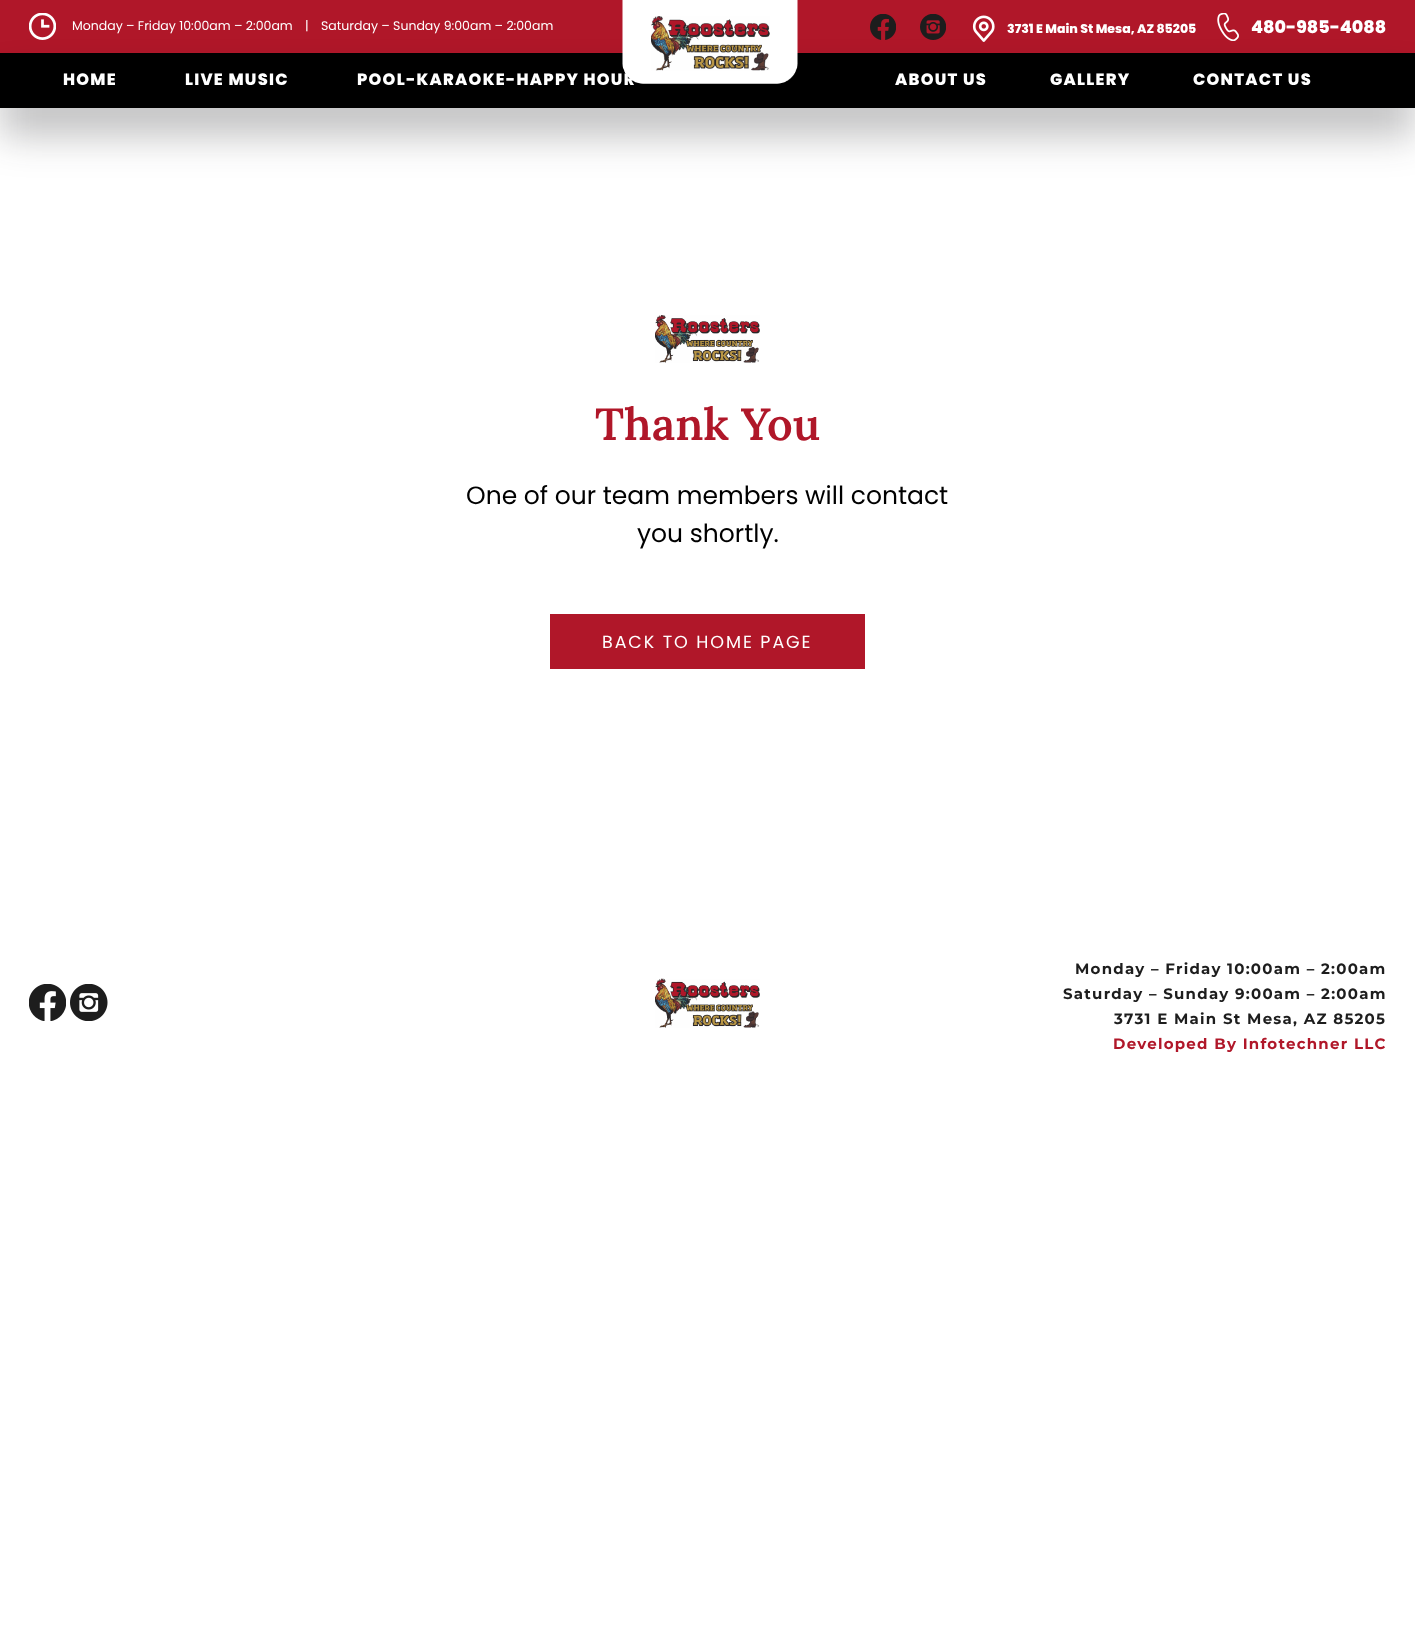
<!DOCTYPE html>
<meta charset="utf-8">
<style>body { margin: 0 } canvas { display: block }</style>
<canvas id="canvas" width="1415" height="1642"></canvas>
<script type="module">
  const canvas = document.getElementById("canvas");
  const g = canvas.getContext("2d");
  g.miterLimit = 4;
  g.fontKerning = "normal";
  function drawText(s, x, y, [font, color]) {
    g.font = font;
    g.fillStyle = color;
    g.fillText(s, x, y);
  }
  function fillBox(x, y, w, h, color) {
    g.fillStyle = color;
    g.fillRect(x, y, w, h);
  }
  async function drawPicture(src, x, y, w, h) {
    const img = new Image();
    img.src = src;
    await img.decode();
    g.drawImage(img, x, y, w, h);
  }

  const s1 = ["12.5px Poppins", "#FFFFFF"];
  const s2 = ["800 16.25px Poppins", "#FFFFFF"];
  const s3 = ["800 12.5px Poppins", "#FFFFFF"];
  const s4 = ["800 17.5px Poppins", "#FFFFFF"];
  const s5 = ["600 45px Lora", "#B01729"];
  const s6 = ["25px Poppins", "#000000"];
  const s7 = ["17.5px Poppins", "#FFFFFF"];
  const s8 = ["bold 15px Montserrat", "#1D1D1D"];
  const s9 = ["bold 15px Montserrat", "#B01729"];

  fillBox(0, 0, 1415, 1642, "#FFFFFF");
  fillBox(0, 0, 1415, 53, "#B01729");
  await drawPicture("pic1.png", 29, 13, 27, 27);
  drawText("Monday – Friday 10:00am – 2:00am", 72, 30, s1);
  drawText("|", 305, 30, s1);
  drawText("Saturday – Sunday 9:00am – 2:00am", 321, 30, s1);
  await drawPicture("pic3.png", 870, 14, 26, 26);
  await drawPicture("pic4.png", 920, 14, 26, 26);
  await drawPicture("pic5.png", 972, 15, 23, 27);
  await drawPicture("pic6.png", 1217, 13, 22, 28);
  g.fillStyle = "rgba(32, 33, 36, 0.28)";
  g.filter = "blur(19px)";
  g.beginPath();
  g.rect(0, 81, 1415, 55);
  g.fill();
  g.filter = "none";
  fillBox(0, 53, 1415, 55, "#000000");
  g.letterSpacing = "1.25px";
  drawText("POOL-KARAOKE-HAPPY HOUR", 357, 85, s2);
  await drawPicture("pic2.png", 622, 0, 176, 84);
  g.letterSpacing = "0px";
  drawText("3731 E Main St Mesa, AZ 85205", 1007, 33, s3);
  drawText("480-985-4088", 1251, 33, s4);
  g.letterSpacing = "1.25px";
  drawText("HOME", 63, 85, s2);
  drawText("LIVE MUSIC", 185, 85, s2);
  drawText("ABOUT US", 895, 85, s2);
  drawText("GALLERY", 1050, 85, s2);
  drawText("CONTACT US", 1193, 85, s2);
  await drawPicture("pic7.png", 655, 315, 105, 48);
  g.letterSpacing = "0px";
  drawText("Thank You", 595, 440, s5);
  drawText("One of our team members will contact", 466, 504, s6);
  drawText("you shortly.", 637, 542, s6);
  fillBox(550, 614, 315, 55, "#B01729");
  g.letterSpacing = "1.9px";
  drawText("BACK TO HOME PAGE", 602, 648, s7);
  await drawPicture("pic8.png", 29, 984, 37, 37);
  await drawPicture("pic9.png", 70, 984, 38, 37);
  await drawPicture("pic10.png", 655, 978, 105, 50);
  g.letterSpacing = "1.25px";
  drawText("Monday – Friday 10:00am – 2:00am", 1075, 974, s8);
  drawText("Saturday – Sunday 9:00am – 2:00am", 1063, 999, s8);
  drawText("3731 E Main St Mesa, AZ 85205", 1114, 1024, s8);
  drawText("Developed By Infotechner LLC", 1113, 1049, s9);
</script>
